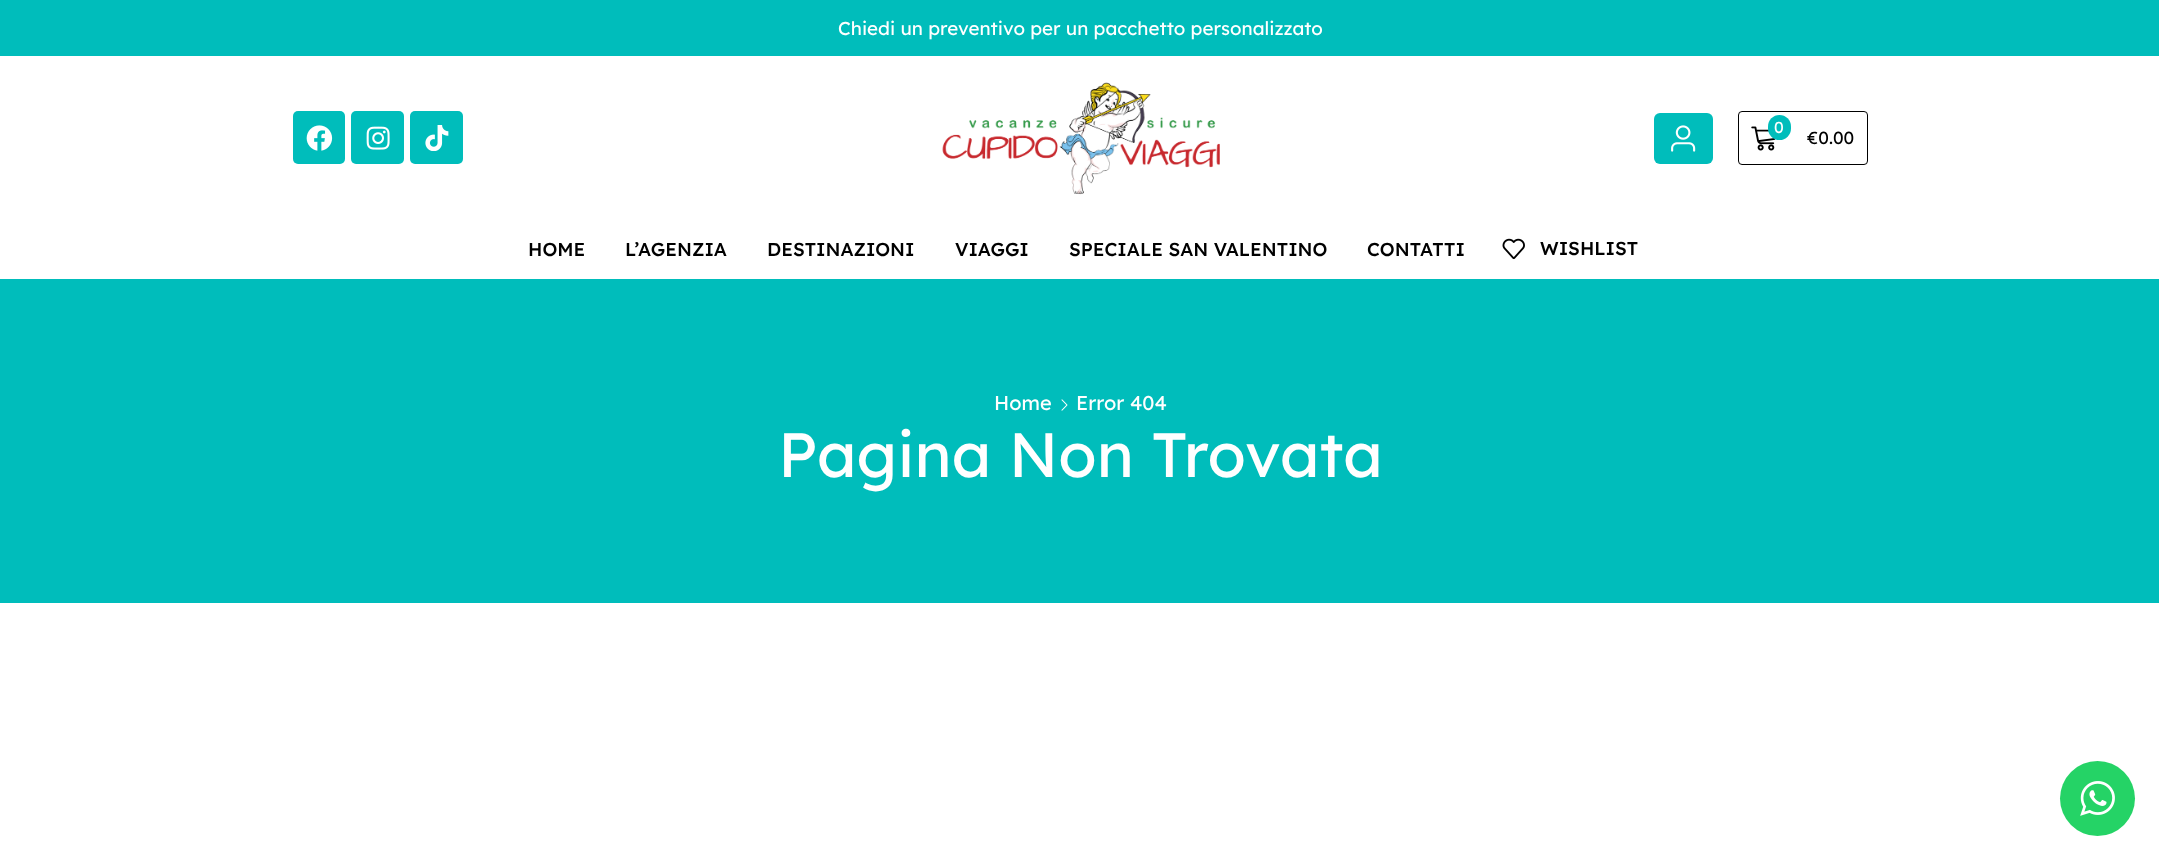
<!DOCTYPE html>
<meta charset="utf-8">
<style>body { margin: 0 } canvas { display: block }</style>
<canvas id="canvas" width="2159" height="861"></canvas>
<script type="module">
  const canvas = document.getElementById("canvas");
  const g = canvas.getContext("2d");
  g.miterLimit = 4;
  g.fontKerning = "normal";
  function drawText(s, x, y, [font, color]) {
    g.font = font;
    g.fillStyle = color;
    g.fillText(s, x, y);
  }
  function fillBox(x, y, w, h, color) {
    g.fillStyle = color;
    g.fillRect(x, y, w, h);
  }
  function fillRounded(x, y, w, h, r, color) {
    g.fillStyle = color;
    g.beginPath();
    g.roundRect(x, y, w, h, r);
    g.fill();
  }
  async function drawPicture(src, x, y, w, h) {
    const img = new Image();
    img.src = src;
    await img.decode();
    g.drawImage(img, x, y, w, h);
  }

  const s1 = ["18.75px Lexend Deca", "#FFFFFF"];
  const s2 = ["16px Lexend Deca", "#FFFFFF"];
  const s3 = ["17.5px Lexend Deca", "#000000"];
  const s4 = ["500 18.75px Lexend Deca", "#000000"];
  const s5 = ["20px Lexend Deca", "#FFFFFF"];
  const s6 = ["62.5px Lexend Deca", "#FFFFFF"];

  fillBox(0, 0, 2159, 861, "#FFFFFF");
  fillBox(0, 0, 2159, 56, "#00BDBB");
  drawText("Chiedi un preventivo per un pacchetto personalizzato", 838, 35, s1);
  fillRounded(293, 111, 52, 53, 5, "#00BDBB");
  await drawPicture("pic1.png", 306, 125, 27, 26);
  fillRounded(351, 111, 53, 53, 5, "#00BDBB");
  await drawPicture("pic2.png", 366, 126, 24, 24);
  fillRounded(410, 111, 53, 53, 5, "#00BDBB");
  await drawPicture("pic3.png", 425, 125, 24, 26);
  await drawPicture("pic4.png", 942, 82, 278, 113);
  fillRounded(1654, 113, 59, 51, 6, "#00BDBB");
  await drawPicture("pic5.png", 1671, 125, 25, 27);
  g.beginPath();
  g.roundRect(1738.5, 111.5, 129, 53, 3.5);
  g.strokeStyle = "#000000";
  g.stroke();
  await drawPicture("pic6.png", 1751, 126, 25, 25);
  fillRounded(1768, 115, 23, 25, 11.5, "#00BDBB");
  drawText("0", 1774, 133, s2);
  drawText("€0.00", 1807, 144, s3);
  drawText("HOME", 528, 256, s4);
  drawText("L’AGENZIA", 625, 256, s4);
  drawText("DESTINAZIONI", 767, 256, s4);
  drawText("VIAGGI", 955, 256, s4);
  drawText("SPECIALE SAN VALENTINO", 1069, 256, s4);
  drawText("CONTATTI", 1367, 256, s4);
  await drawPicture("pic7.png", 1502, 238, 23, 22);
  drawText("WISHLIST", 1540, 255, s4);
  fillBox(0, 279, 2159, 324, "#00BDBB");
  drawText("Home", 994, 410, s5);
  await drawPicture("pic8.png", 1061, 399, 7, 12);
  drawText("Error 404", 1076, 410, s5);
  drawText("Pagina Non Trovata", 778, 477, s6);
  g.fillStyle = "#25D366";
  g.beginPath();
  g.arc(2097.5, 798.5, 37.5, 0, Math.PI * 2);
  g.fill();
  await drawPicture("pic9.png", 2080, 781, 35, 35);
</script>
